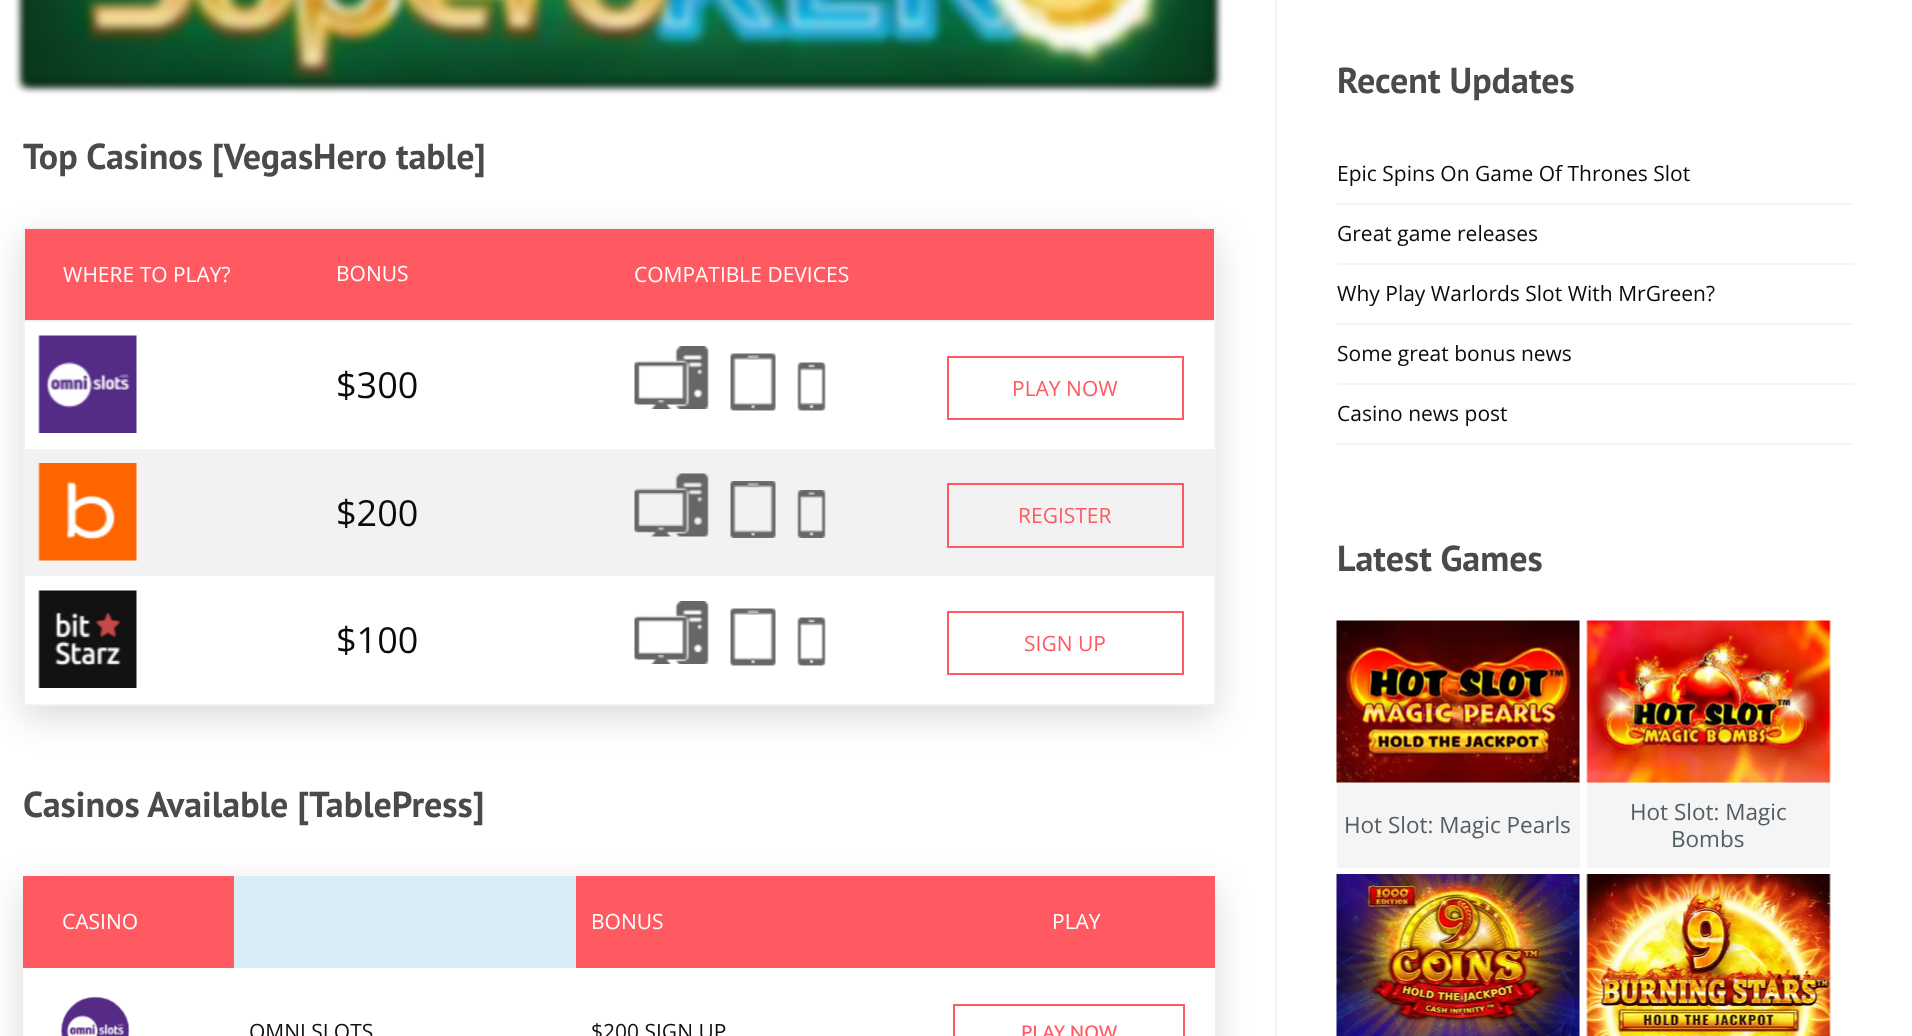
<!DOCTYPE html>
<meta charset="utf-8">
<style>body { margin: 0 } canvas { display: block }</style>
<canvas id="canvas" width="1912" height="1036"></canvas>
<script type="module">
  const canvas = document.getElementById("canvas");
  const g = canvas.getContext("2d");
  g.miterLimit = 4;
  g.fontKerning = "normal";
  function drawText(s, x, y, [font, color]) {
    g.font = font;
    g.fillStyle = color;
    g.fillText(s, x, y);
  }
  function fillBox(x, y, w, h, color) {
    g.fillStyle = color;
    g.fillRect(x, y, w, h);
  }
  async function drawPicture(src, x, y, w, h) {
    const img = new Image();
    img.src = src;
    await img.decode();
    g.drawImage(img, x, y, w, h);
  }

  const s1 = ["bold 36px PT Sans", "#4A4A4A"];
  const s2 = ["21px Open Sans", "#FFFFFF"];
  const s3 = ["36px Open Sans", "#0A0A0A"];
  const s4 = ["21px Open Sans", "#FF5A62"];
  const s5 = ["21px Open Sans", "#111111"];
  const s6 = ["21.5px Ek Mukta", "#FF5A62"];
  const s7 = ["21px Open Sans", "#0A0A0A"];
  const s8 = ["22.5px Open Sans", "#525D64"];

  fillBox(0, 0, 1912, 1036, "#FFFFFF");
  g.fillStyle = "#000000";
  g.filter = "blur(4.5px)";
  g.beginPath();
  g.rect(23, -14, 1192, 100);
  g.fill();
  g.filter = "none";
  await drawPicture("pic1.png", 14, 0, 1209, 93);
  drawText("Top Casinos [VegasHero table]", 23, 169, s1);
  g.fillStyle = "rgba(0, 0, 0, 0.15)";
  g.filter = "blur(18px)";
  g.beginPath();
  g.roundRect(23, 239, 1192, 478, 5);
  g.fill();
  g.filter = "none";
  fillBox(23, 227, 1192, 2, "#F2F2F2");
  fillBox(23, 320, 1192, 2, "#F2F2F2");
  fillBox(1214, 320, 2, 385, "#F2F2F2");
  fillBox(1214, 227, 2, 94, "#F2F2F2");
  fillBox(23, 704, 1192, 2, "#F2F2F2");
  fillBox(23, 320, 2, 385, "#F2F2F2");
  fillBox(23, 227, 2, 94, "#F2F2F2");
  fillBox(25, 229, 1189, 91, "#FF5A62");
  drawText("WHERE TO PLAY?", 63, 282, s2);
  drawText("BONUS", 336, 281, s2);
  drawText("COMPATIBLE DEVICES", 634, 282, s2);
  fillBox(25, 322, 1189, 382, "#FFFFFF");
  await drawPicture("pic2.png", 38, 335, 99, 98);
  drawText("$300", 336, 398, s3);
  await drawPicture("pic3.png", 634, 346, 75, 63);
  await drawPicture("pic4.png", 730, 353, 46, 58);
  await drawPicture("pic5.png", 797, 362, 29, 49);
  g.strokeStyle = "#FF5A62";
  g.lineWidth = 2;
  g.strokeRect(948, 357, 235, 62);
  drawText("PLAY NOW", 1012, 396, s4);
  fillBox(25, 449, 1189, 127, "#F2F2F2");
  await drawPicture("pic6.png", 38, 463, 99, 98);
  drawText("$200", 336, 526, s3);
  await drawPicture("pic7.png", 634, 473, 75, 64);
  await drawPicture("pic8.png", 730, 481, 46, 57);
  await drawPicture("pic9.png", 797, 490, 29, 48);
  g.strokeRect(948, 484, 235, 63);
  drawText("REGISTER", 1018, 523, s4);
  await drawPicture("pic10.png", 38, 590, 99, 98);
  drawText("$100", 336, 653, s3);
  await drawPicture("pic3.png", 634, 601, 75, 63);
  await drawPicture("pic4.png", 730, 608, 46, 58);
  await drawPicture("pic5.png", 797, 617, 29, 49);
  g.strokeRect(948, 612, 235, 62);
  drawText("SIGN UP", 1024, 651, s4);
  drawText("Casinos Available [TablePress]", 23, 817, s1);
  g.save();
  g.beginPath();
  g.moveTo(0, 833);
  g.lineTo(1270, 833);
  g.lineTo(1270, 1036);
  g.lineTo(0, 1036);
  g.closePath();
  g.moveTo(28, 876);
  g.lineTo(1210, 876);
  g.bezierCurveTo(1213, 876, 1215, 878, 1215, 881);
  g.lineTo(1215, 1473);
  g.bezierCurveTo(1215, 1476, 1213, 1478, 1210, 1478);
  g.lineTo(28, 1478);
  g.bezierCurveTo(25, 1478, 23, 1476, 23, 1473);
  g.lineTo(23, 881);
  g.bezierCurveTo(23, 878, 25, 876, 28, 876);
  g.closePath();
  g.clip("evenodd");
  g.fillStyle = "rgba(0, 0, 0, 0.15)";
  g.filter = "blur(18px)";
  g.beginPath();
  g.roundRect(23, 888, 1192, 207, 5);
  g.fill();
  g.filter = "none";
  g.restore();
  fillBox(23, 876, 211, 92, "#FF5A62");
  drawText("CASINO", 62, 929, s2);
  fillBox(234, 876, 342, 92, "#D9EDF7");
  fillBox(576, 876, 639, 92, "#FF5A62");
  drawText("BONUS", 591, 929, s2);
  drawText("PLAY", 1052, 929, s2);
  await drawPicture("pic11.png", 61, 996, 69, 40);
  drawText("OMNI SLOTS", 249, 1039, s5);
  drawText("$200 SIGN UP", 591, 1039, s5);
  g.strokeRect(954, 1005, 230, 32);
  drawText("PLAY NOW", 1021, 1039, s6);
  fillBox(1275, 0, 2, 1036, "#F5F5F5");
  drawText("Recent Updates", 1337, 93, s1);
  fillBox(1337, 203, 516, 2, "#F5F5F5");
  drawText("Epic Spins On Game Of Thrones Slot", 1337, 181, s7);
  fillBox(1337, 263, 516, 2, "#F5F5F5");
  drawText("Great game releases", 1337, 241, s7);
  fillBox(1337, 323, 516, 2, "#F5F5F5");
  drawText("Why Play Warlords Slot With MrGreen?", 1337, 301, s7);
  fillBox(1337, 383, 516, 2, "#F5F5F5");
  drawText("Some great bonus news", 1337, 361, s7);
  fillBox(1337, 443, 516, 2, "#F5F5F5");
  drawText("Casino news post", 1337, 421, s7);
  drawText("Latest Games", 1337, 571, s1);
  fillBox(1337, 621, 243, 162, "#F1F1F1");
  fillBox(1337, 783, 243, 85, "#F5F5F5");
  await drawPicture("pic12.png", 1336, 620, 244, 163);
  drawText("Hot Slot: Magic Pearls", 1344, 833, s8);
  fillBox(1587, 621, 243, 162, "#F1F1F1");
  fillBox(1587, 783, 243, 85, "#F5F5F5");
  await drawPicture("pic13.png", 1586, 620, 245, 163);
  drawText("Hot Slot: Magic", 1630, 820, s8);
  drawText("Bombs", 1671, 847, s8);
  fillBox(1579, 875, 1, 161, "#F1F1F1");
  await drawPicture("pic14.png", 1336, 874, 244, 162);
  await drawPicture("pic15.png", 1586, 874, 245, 162);
</script>
